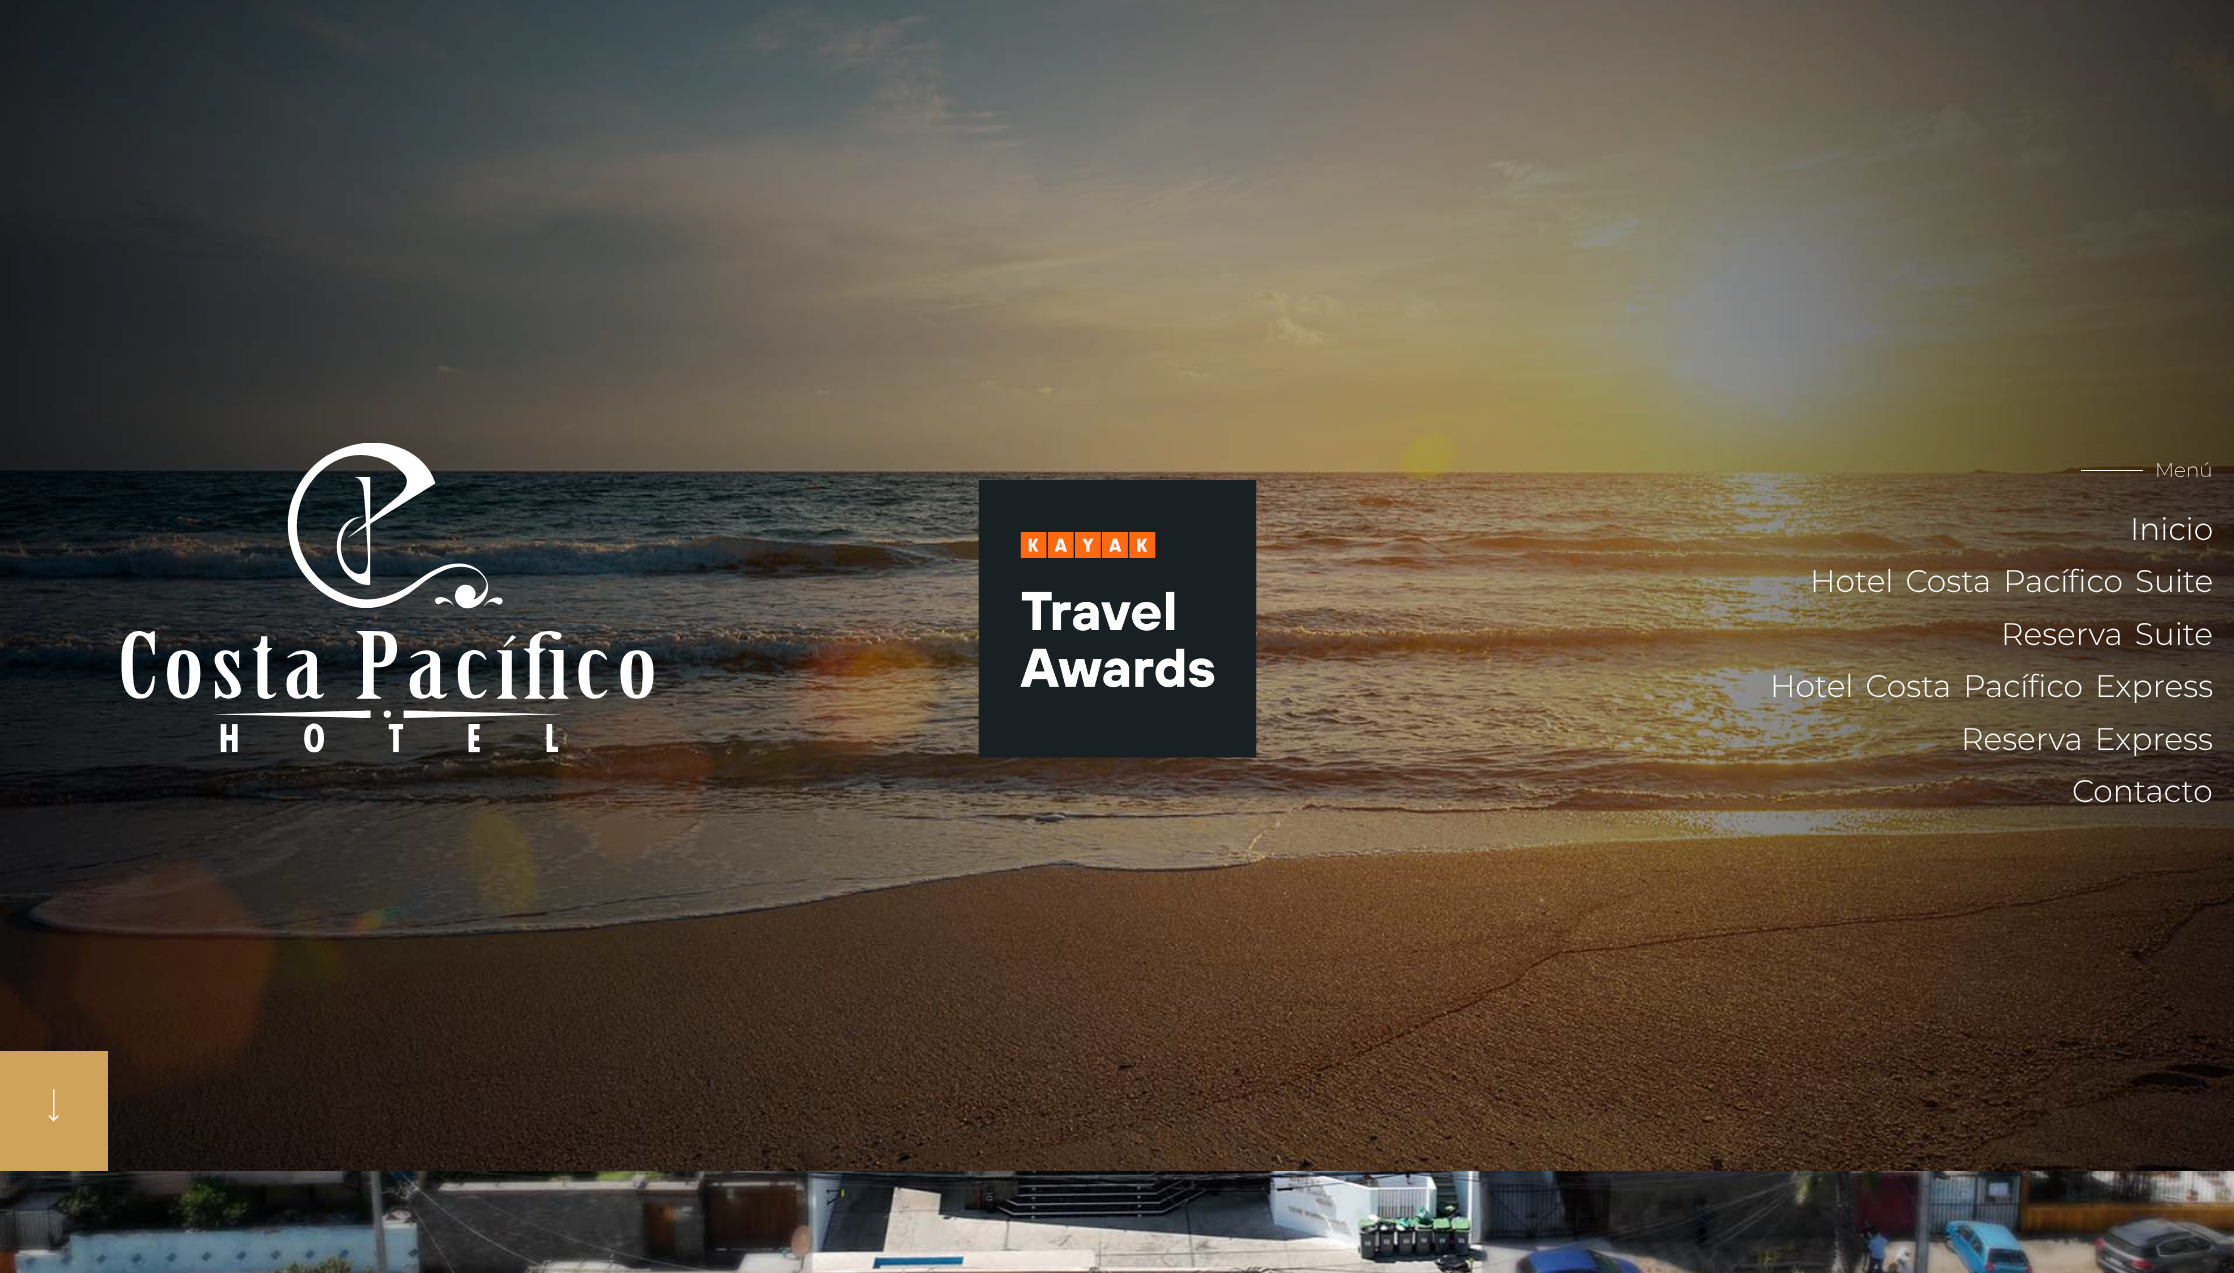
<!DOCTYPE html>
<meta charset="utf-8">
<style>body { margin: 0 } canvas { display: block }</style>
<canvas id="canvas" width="2234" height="1273"></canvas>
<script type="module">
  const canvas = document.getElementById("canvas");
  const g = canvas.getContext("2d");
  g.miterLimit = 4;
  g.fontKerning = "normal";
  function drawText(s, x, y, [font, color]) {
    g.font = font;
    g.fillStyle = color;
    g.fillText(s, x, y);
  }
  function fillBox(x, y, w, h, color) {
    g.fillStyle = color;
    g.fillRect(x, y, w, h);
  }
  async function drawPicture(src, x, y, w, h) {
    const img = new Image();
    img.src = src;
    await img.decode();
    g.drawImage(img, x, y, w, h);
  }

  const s1 = ["200 20px Montserrat", "#FFFFFF"];
  const s2 = ["300 31.25px Montserrat", "#FFFFFF"];

  fillBox(0, 0, 2234, 1273, "#FFFFFF");
  await drawPicture("pic1.png", 0, 0, 2234, 1171);
  await drawPicture("pic2.png", 121, 443, 533, 310);
  await drawPicture("pic3.png", 978, 480, 279, 278);
  fillBox(2081, 470, 62, 1, "#FFFFFF");
  drawText("Menú", 2155, 477, s1);
  drawText("Inicio", 2130, 540, s2);
  g.wordSpacing = "4px";
  drawText("Hotel Costa Pacífico Suite", 1810, 592, s2);
  drawText("Reserva Suite", 2001, 645, s2);
  drawText("Hotel Costa Pacífico Express", 1770, 697, s2);
  drawText("Reserva Express", 1961, 750, s2);
  g.wordSpacing = "0px";
  drawText("Contacto", 2072, 802, s2);
  fillBox(0, 1051, 108, 120, "#CFA359");
  g.fillStyle = "#FFFFFF";
  g.beginPath();
  g.moveTo(58, 1115);
  g.lineTo(54.5, 1118.5);
  g.lineTo(54.5, 1089);
  g.lineTo(53, 1089);
  g.lineTo(53, 1118.5);
  g.lineTo(49.5, 1115);
  g.lineTo(48.5, 1116);
  g.lineTo(53.5, 1121.5);
  g.lineTo(59, 1116);
  g.closePath();
  g.fill("evenodd");
  await drawPicture("pic4.png", 0, 1171, 2234, 102);
</script>
